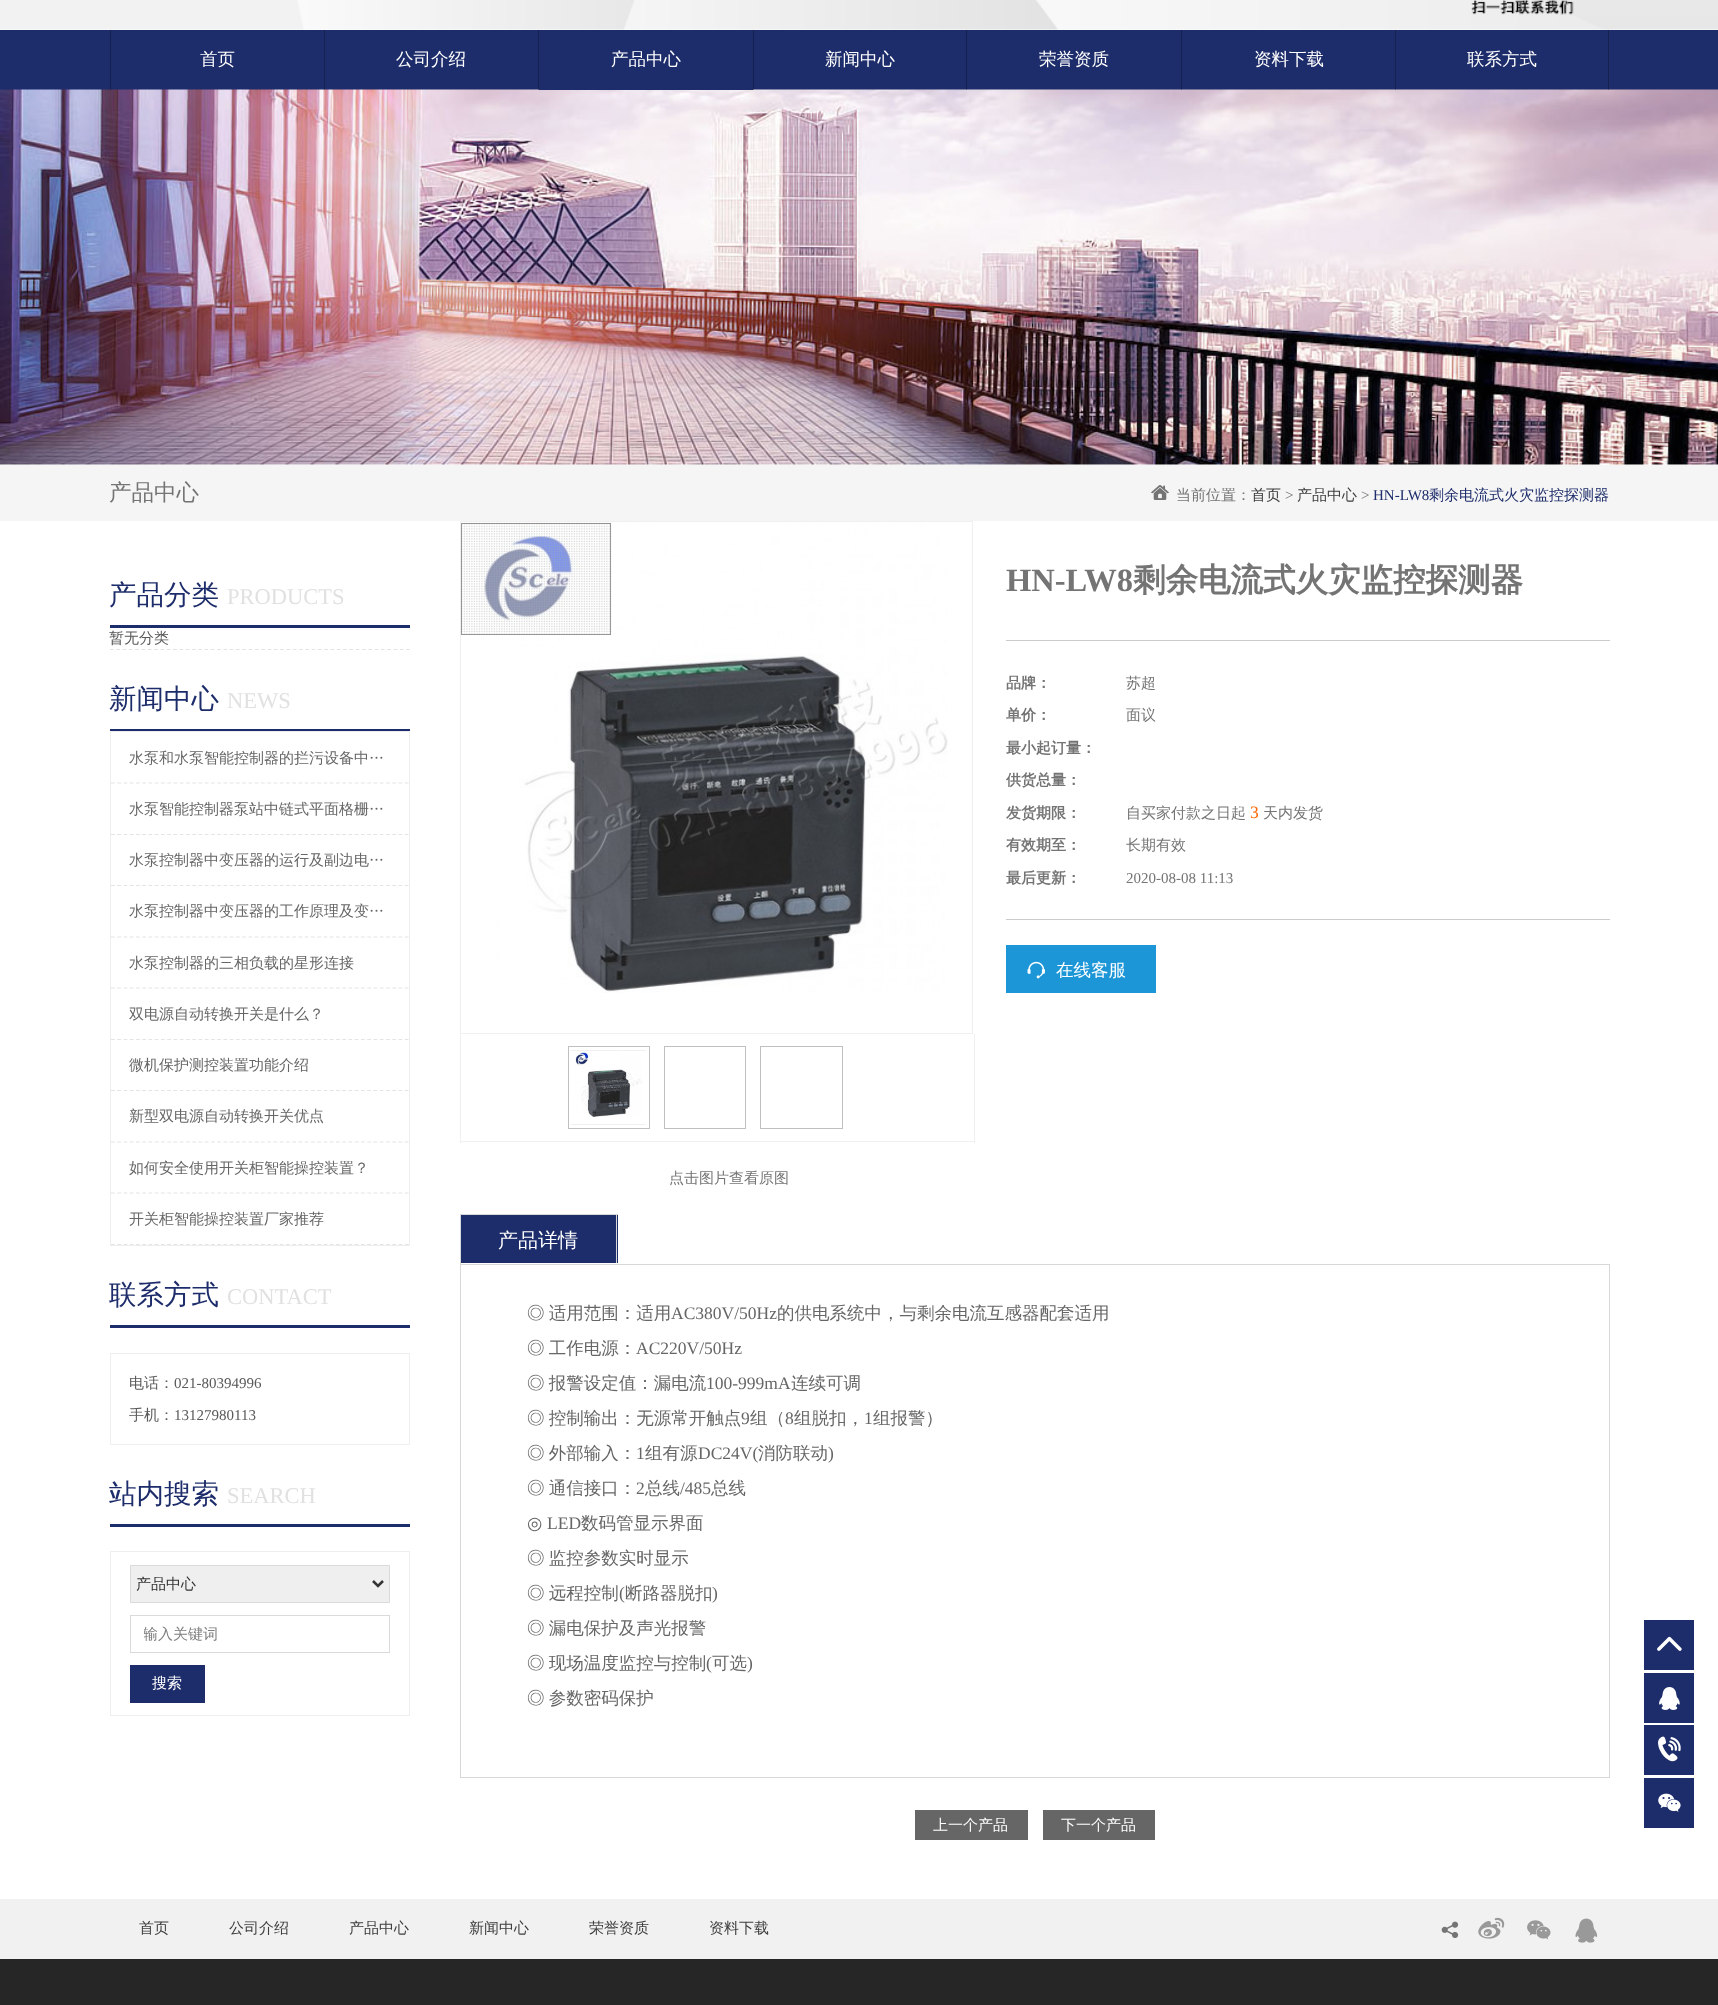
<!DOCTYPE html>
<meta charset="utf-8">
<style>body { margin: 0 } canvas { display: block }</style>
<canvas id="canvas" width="1718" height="2005"></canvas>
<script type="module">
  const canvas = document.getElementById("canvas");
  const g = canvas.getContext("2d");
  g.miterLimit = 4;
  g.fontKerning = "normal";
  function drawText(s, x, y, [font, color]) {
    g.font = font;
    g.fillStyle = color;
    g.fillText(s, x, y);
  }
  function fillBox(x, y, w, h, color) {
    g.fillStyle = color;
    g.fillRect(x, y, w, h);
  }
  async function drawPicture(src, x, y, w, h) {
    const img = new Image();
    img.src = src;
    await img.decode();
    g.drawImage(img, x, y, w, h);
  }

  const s1 = ["500 17.5px WenQuanYi Zen Hei", "#FFFFFF"];
  const s2 = ["500 22.5px WenQuanYi Zen Hei", "#747474"];
  const s3 = ["500 15px WenQuanYi Zen Hei", "#747474"];
  const s4 = ["500 15px WenQuanYi Zen Hei", "#3D3D3D"];
  const s5 = ["15px Liberation Serif", "#747474"];
  const s6 = ["15px Liberation Serif", "#1D2C6A"];
  const s7 = ["500 15px WenQuanYi Zen Hei", "#1D2C6A"];
  const s8 = ["500 27.5px WenQuanYi Zen Hei", "#1D2C6A"];
  const s9 = ["22.5px Liberation Serif", "#E1E1E1"];
  const s10 = ["500 15px WenQuanYi Zen Hei", "#595959"];
  const s11 = ["500 15px WenQuanYi Zen Hei", "#666666"];
  const s12 = ["15px Liberation Serif", "#595959"];
  const s13 = ["500 15px WenQuanYi Zen Hei", "#333333"];
  const s14 = ["500 15px WenQuanYi Zen Hei", "#7D7D7D"];
  const s15 = ["500 15px WenQuanYi Zen Hei", "#FFFFFF"];
  const s16 = ["bold 32.5px Liberation Serif", "#747474"];
  const s17 = ["bold 32.5px WenQuanYi Zen Hei", "#747474"];
  const s18 = ["bold 15px WenQuanYi Zen Hei", "#747474"];
  const s19 = ["17.5px Liberation Serif", "#FF6600"];
  const s20 = ["500 20px WenQuanYi Zen Hei", "#FFFFFF"];
  const s21 = ["500 17.5px WenQuanYi Zen Hei", "#666666"];
  const s22 = ["17.5px Liberation Serif", "#666666"];
  const s23 = ["17.5px DejaVu Sans", "#666666"];

  fillBox(0, 0, 1718, 2005, "#FFFFFF");
  await drawPicture("pic1.png", 0, 0, 1718, 30);
  fillBox(0, 30, 1718, 60, "#1D2C6A");
  await drawPicture("pic2.png", 0, 89, 1718, 376);
  fillBox(110, 30, 1, 60, "rgba(0, 0, 0, 0.25)");
  drawText("首页", 200, 65, s1);
  fillBox(324, 30, 1, 60, "rgba(0, 0, 0, 0.25)");
  drawText("公司介绍", 396, 65, s1);
  fillBox(538, 30, 1, 60, "rgba(0, 0, 0, 0.25)");
  fillBox(539, 89, 214, 1, "#1D2C6A");
  drawText("产品中心", 611, 65, s1);
  fillBox(753, 30, 1, 60, "rgba(0, 0, 0, 0.25)");
  drawText("新闻中心", 825, 65, s1);
  fillBox(966, 30, 1, 60, "rgba(0, 0, 0, 0.25)");
  drawText("荣誉资质", 1039, 65, s1);
  fillBox(1181, 30, 1, 60, "rgba(0, 0, 0, 0.25)");
  drawText("资料下载", 1254, 65, s1);
  fillBox(1608, 30, 1, 60, "rgba(0, 0, 0, 0.25)");
  fillBox(1395, 30, 1, 60, "rgba(0, 0, 0, 0.25)");
  drawText("联系方式", 1467, 65, s1);
  fillBox(0, 465, 1718, 56, "#F5F5F5");
  drawText("产品中心", 109, 500, s2);
  await drawPicture("pic3.png", 1151, 485, 18, 15);
  drawText("当前位置：", 1176, 500, s3);
  drawText("首页", 1251, 500, s4);
  drawText(">", 1285, 500, s5);
  drawText("产品中心", 1297, 500, s4);
  drawText(">", 1361, 500, s5);
  drawText("HN-LW8", 1373, 500, s6);
  drawText("剩余电流式火灾监控探测器", 1429, 500, s7);
  fillBox(110, 625, 300, 3, "#1D2C6A");
  drawText("产品分类", 109, 604, s8);
  drawText("PRODUCTS", 227, 604, s9);
  g.beginPath();
  g.moveTo(110, 649.5);
  g.lineTo(410, 649.5);
  g.strokeStyle = "#E4E4E4";
  g.lineWidth = 1.2;
  g.setLineDash([3.75, 2.55]);
  g.stroke();
  drawText("暂无分类", 109, 643, s10);
  fillBox(110, 729, 300, 2, "#1D2C6A");
  drawText("新闻中心", 109, 708, s8);
  drawText("NEWS", 227, 708, s9);
  g.strokeStyle = "#EEEEEE";
  g.lineWidth = 1;
  g.setLineDash([]);
  g.strokeRect(110.5, 731.5, 299, 514);
  g.beginPath();
  g.moveTo(111, 783);
  g.lineTo(409, 783);
  g.strokeStyle = "#E4E4E4";
  g.lineWidth = 1.2;
  g.setLineDash([3.75, 2.5]);
  g.stroke();
  drawText("水泵和水泵智能控制器的拦污设备中…", 129, 763, s11);
  g.beginPath();
  g.moveTo(111, 834.5);
  g.lineTo(409, 834.5);
  g.stroke();
  drawText("水泵智能控制器泵站中链式平面格栅…", 129, 814, s11);
  g.beginPath();
  g.moveTo(111, 885.5);
  g.lineTo(409, 885.5);
  g.stroke();
  drawText("水泵控制器中变压器的运行及副边电…", 129, 865, s11);
  g.beginPath();
  g.moveTo(111, 937);
  g.lineTo(409, 937);
  g.stroke();
  drawText("水泵控制器中变压器的工作原理及变…", 129, 916, s11);
  g.beginPath();
  g.moveTo(111, 988);
  g.lineTo(409, 988);
  g.stroke();
  drawText("水泵控制器的三相负载的星形连接", 129, 968, s11);
  g.beginPath();
  g.moveTo(111, 1039.5);
  g.lineTo(409, 1039.5);
  g.stroke();
  drawText("双电源自动转换开关是什么？", 129, 1019, s11);
  g.beginPath();
  g.moveTo(111, 1090.5);
  g.lineTo(409, 1090.5);
  g.stroke();
  drawText("微机保护测控装置功能介绍", 129, 1070, s11);
  g.beginPath();
  g.moveTo(111, 1142);
  g.lineTo(409, 1142);
  g.stroke();
  drawText("新型双电源自动转换开关优点", 129, 1121, s11);
  g.beginPath();
  g.moveTo(111, 1193);
  g.lineTo(409, 1193);
  g.stroke();
  drawText("如何安全使用开关柜智能操控装置？", 129, 1173, s11);
  g.beginPath();
  g.moveTo(111, 1244.5);
  g.lineTo(409, 1244.5);
  g.stroke();
  drawText("开关柜智能操控装置厂家推荐", 129, 1224, s11);
  fillBox(110, 1325, 300, 3, "#1D2C6A");
  drawText("联系方式", 109, 1304, s8);
  drawText("CONTACT", 227, 1304, s9);
  g.strokeStyle = "#EEEEEE";
  g.lineWidth = 1;
  g.setLineDash([]);
  g.strokeRect(110.5, 1353.5, 299, 91);
  drawText("电话：", 129, 1388, s10);
  drawText("021-80394996", 174, 1388, s12);
  drawText("手机：", 129, 1420, s10);
  drawText("13127980113", 174, 1420, s12);
  fillBox(110, 1524, 300, 3, "#1D2C6A");
  drawText("站内搜索", 109, 1503, s8);
  drawText("SEARCH", 227, 1503, s9);
  g.strokeRect(110.5, 1551.5, 299, 164);
  g.fillStyle = "#EFEFEF";
  g.beginPath();
  g.rect(130.5, 1565.5, 259, 37);
  g.fill();
  g.strokeStyle = "#DADADA";
  g.stroke();
  g.beginPath();
  g.moveTo(373, 1581);
  g.lineTo(378, 1586);
  g.lineTo(383, 1581);
  g.strokeStyle = "#333333";
  g.lineWidth = 2.5;
  g.stroke();
  drawText("产品中心", 136, 1589, s13);
  g.strokeStyle = "#DADADA";
  g.lineWidth = 1;
  g.strokeRect(130.5, 1615.5, 259, 37);
  g.save();
  g.beginPath();
  g.rect(144, 1616, 245, 35);
  g.clip();
  drawText("输入关键词", 143, 1639, s14);
  g.restore();
  fillBox(130, 1665, 75, 38, "#1D2C6A");
  drawText("搜索", 152, 1688, s15);
  drawText("HN-LW8", 1006, 591, s16);
  drawText("剩余电流式火灾监控探测器", 1133, 591, s17);
  fillBox(1006, 640, 604, 1, "#CCCCCC");
  fillBox(1006, 919, 604, 1, "#CCCCCC");
  drawText("品牌：", 1006, 688, s18);
  drawText("苏超", 1126, 688, s3);
  drawText("单价：", 1006, 720, s18);
  drawText("面议", 1126, 720, s3);
  drawText("最小起订量：", 1006, 753, s18);
  drawText("供货总量：", 1006, 785, s18);
  drawText("发货期限：", 1006, 818, s18);
  drawText("自买家付款之日起", 1126, 818, s3);
  drawText("3", 1250, 818, s19);
  drawText("天内发货", 1263, 818, s3);
  drawText("有效期至：", 1006, 850, s18);
  drawText("长期有效", 1126, 850, s3);
  drawText("最后更新：", 1006, 883, s18);
  drawText("2020-08-08 11:13", 1126, 883, s5);
  fillBox(1006, 945, 150, 48, "#1C96D7");
  await drawPicture("pic4.png", 1027, 961, 18, 18);
  drawText("在线客服", 1056, 976, s1);
  g.strokeStyle = "#F0F0F0";
  g.strokeRect(460.5, 521.5, 512, 512);
  await drawPicture("pic6.png", 484, 522, 464, 471);
  fillBox(484, 526, 100, 96, "rgba(255, 255, 255, 0.5)");
  await drawPicture("pic5.png", 461, 522, 151, 113);
  g.strokeStyle = "rgba(51, 51, 51, 0.5)";
  g.strokeRect(461.5, 523.5, 149, 111);
  fillBox(974, 1034, 1, 109, "#F0F0F0");
  fillBox(460, 1141, 515, 1, "#F0F0F0");
  fillBox(460, 1034, 1, 109, "#F0F0F0");
  g.strokeStyle = "#C0C0C0";
  g.strokeRect(568.5, 1046.5, 81, 82);
  g.save();
  g.beginPath();
  g.rect(571, 1050, 75, 75);
  g.clip();
  g.strokeStyle = "#F0F0F0";
  g.strokeRect(549.5, 1050.5, 119, 74);
  g.restore();
  await drawPicture("pic7.png", 575, 1051, 67, 66);
  g.strokeRect(664.5, 1046.5, 81, 82);
  g.strokeRect(760.5, 1046.5, 82, 82);
  drawText("点击图片查看原图", 669, 1183, s3);
  fillBox(460, 1214, 1, 50, "#D8D8D8");
  fillBox(461, 1215, 157, 48, "#1D2C6A");
  fillBox(461, 1214, 157, 1, "#D8D8D8");
  fillBox(616, 1214, 1, 50, "#D8D8D8");
  fillBox(616, 1263, 2, 1, "#FFFFFF");
  drawText("产品详情", 498, 1247, s20);
  g.strokeStyle = "#D8D8D8";
  g.strokeRect(460.5, 1264.5, 1149, 513);
  g.wordSpacing = "-1px";
  drawText("◎ 适用范围：适用", 527, 1319, s21);
  g.wordSpacing = "0px";
  drawText("AC380V/50Hz", 671, 1319, s22);
  drawText("的供电系统中，与剩余电流互感器配套适用", 777, 1319, s21);
  g.wordSpacing = "-1px";
  drawText("◎ 工作电源：", 527, 1354, s21);
  g.wordSpacing = "0px";
  drawText("AC220V/50Hz", 636, 1354, s22);
  g.wordSpacing = "-1px";
  drawText("◎ 报警设定值：漏电流", 527, 1389, s21);
  g.wordSpacing = "0px";
  drawText("100-999mA", 706, 1389, s22);
  drawText("连续可调", 791, 1389, s21);
  g.wordSpacing = "-1px";
  drawText("◎ 控制输出：无源常开触点", 527, 1424, s21);
  g.wordSpacing = "0px";
  drawText("9", 741, 1424, s22);
  drawText("组（", 750, 1424, s21);
  drawText("8", 785, 1424, s22);
  drawText("组脱扣，", 794, 1424, s21);
  drawText("1", 864, 1424, s22);
  drawText("组报警）", 873, 1424, s21);
  g.wordSpacing = "-1px";
  drawText("◎ 外部输入：", 527, 1459, s21);
  g.wordSpacing = "0px";
  drawText("1", 636, 1459, s22);
  drawText("组有源", 645, 1459, s21);
  drawText("DC24V(", 698, 1459, s22);
  drawText("消防联动", 758, 1459, s21);
  drawText(")", 828, 1459, s22);
  g.wordSpacing = "-1px";
  drawText("◎ 通信接口：", 527, 1494, s21);
  g.wordSpacing = "0px";
  drawText("2", 636, 1494, s22);
  drawText("总线", 645, 1494, s21);
  drawText("/485", 680, 1494, s22);
  drawText("总线", 711, 1494, s21);
  drawText("◎", 527, 1529, s23);
  drawText("LED", 547, 1529, s22);
  drawText("数码管显示界面", 581, 1529, s21);
  g.wordSpacing = "-1px";
  drawText("◎ 监控参数实时显示", 527, 1564, s21);
  drawText("◎ 远程控制", 527, 1599, s21);
  g.wordSpacing = "0px";
  drawText("(", 619, 1599, s22);
  drawText("断路器脱扣", 625, 1599, s21);
  drawText(")", 712, 1599, s22);
  g.wordSpacing = "-1px";
  drawText("◎ 漏电保护及声光报警", 527, 1634, s21);
  drawText("◎ 现场温度监控与控制", 527, 1669, s21);
  g.wordSpacing = "0px";
  drawText("(", 706, 1669, s22);
  drawText("可选", 712, 1669, s21);
  drawText(")", 747, 1669, s22);
  g.wordSpacing = "-1px";
  drawText("◎ 参数密码保护", 527, 1704, s21);
  fillBox(915, 1810, 113, 30, "#666666");
  g.wordSpacing = "0px";
  drawText("上一个产品", 933, 1830, s15);
  fillBox(1043, 1810, 112, 30, "#666666");
  drawText("下一个产品", 1061, 1830, s15);
  fillBox(1644, 1620, 50, 50, "#1D2C6A");
  await drawPicture("pic8.png", 1657, 1636, 25, 15);
  fillBox(1644, 1673, 50, 50, "#1D2C6A");
  await drawPicture("pic9.png", 1659, 1687, 21, 23);
  fillBox(1644, 1725, 50, 50, "#1D2C6A");
  await drawPicture("pic10.png", 1658, 1736, 23, 26);
  fillBox(1644, 1778, 50, 50, "#1D2C6A");
  await drawPicture("pic11.png", 1658, 1793, 23, 19);
  fillBox(0, 1899, 1718, 60, "#F1F1F1");
  drawText("首页", 139, 1933, s4);
  drawText("公司介绍", 229, 1933, s4);
  drawText("产品中心", 349, 1933, s4);
  drawText("新闻中心", 469, 1933, s4);
  drawText("荣誉资质", 589, 1933, s4);
  drawText("资料下载", 709, 1933, s4);
  await drawPicture("pic12.png", 1441, 1921, 18, 17);
  await drawPicture("pic13.png", 1478, 1917, 27, 22);
  await drawPicture("pic14.png", 1527, 1920, 24, 20);
  await drawPicture("pic15.png", 1575, 1918, 23, 25);
  fillBox(0, 1959, 1718, 46, "#262626");
</script>
